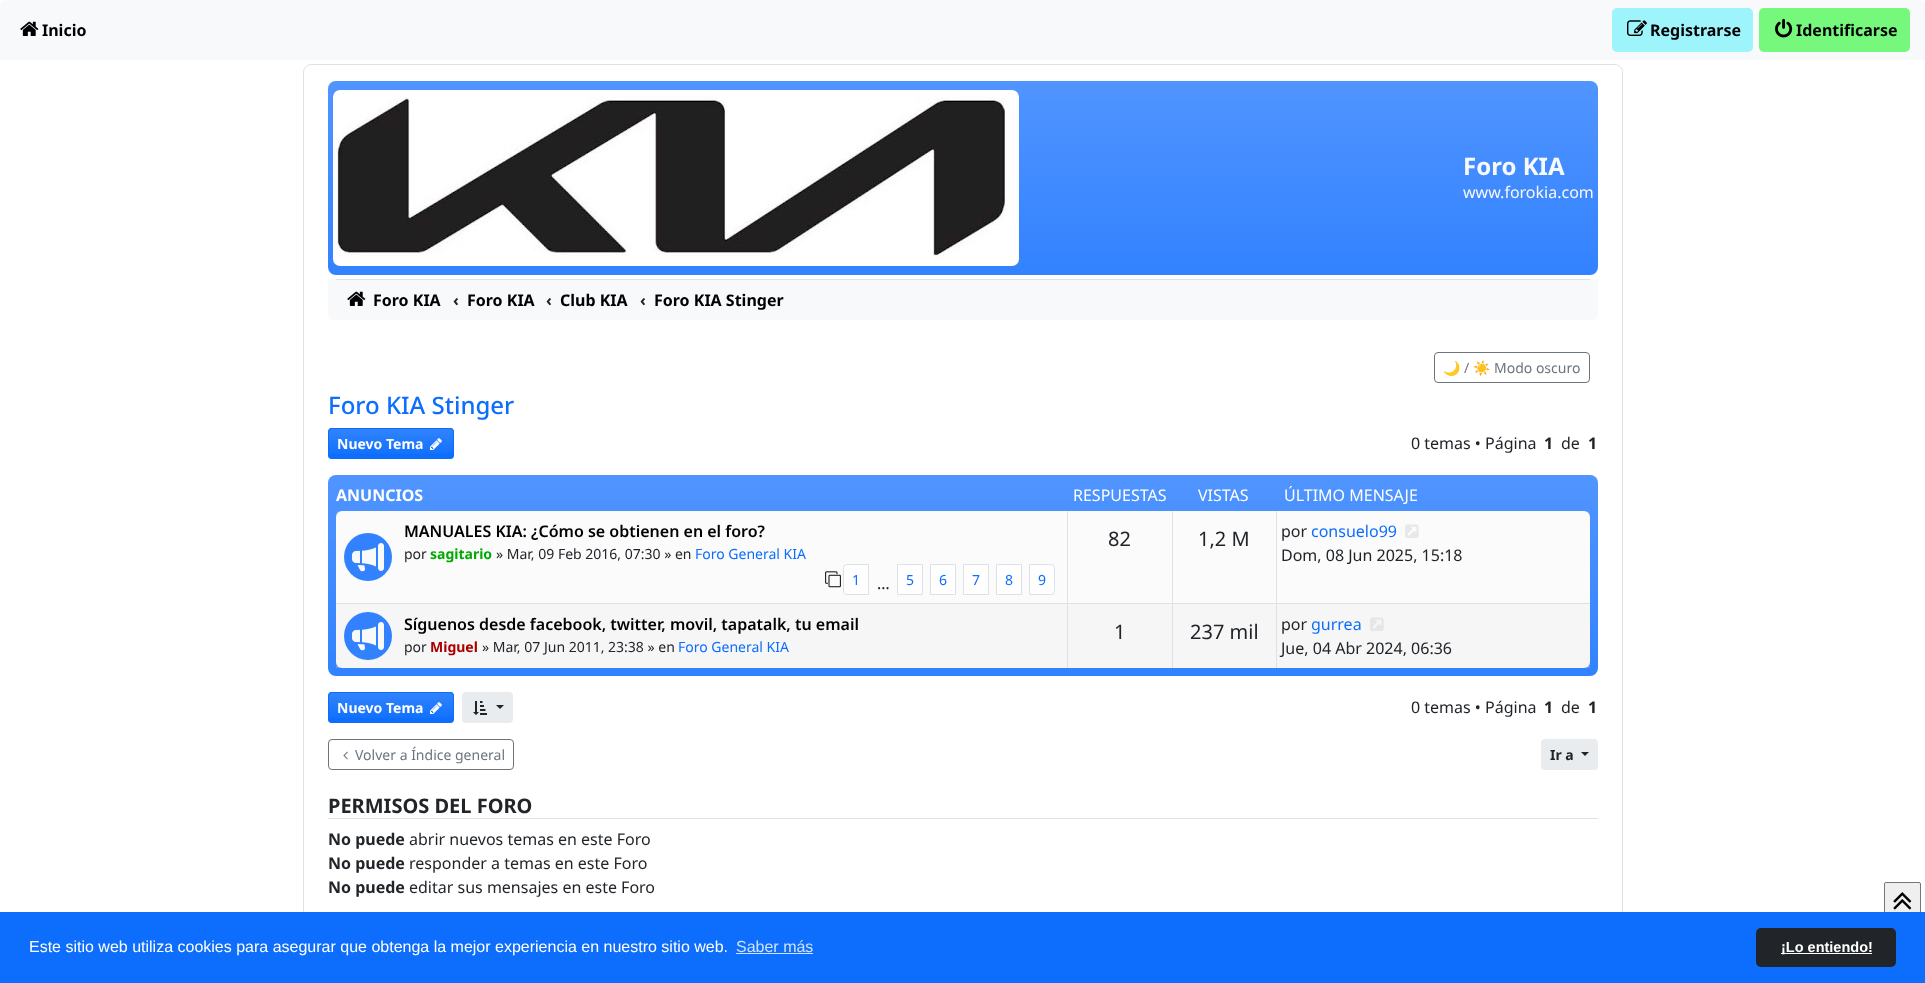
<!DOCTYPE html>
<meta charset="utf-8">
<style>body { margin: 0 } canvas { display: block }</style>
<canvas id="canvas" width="1925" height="983"></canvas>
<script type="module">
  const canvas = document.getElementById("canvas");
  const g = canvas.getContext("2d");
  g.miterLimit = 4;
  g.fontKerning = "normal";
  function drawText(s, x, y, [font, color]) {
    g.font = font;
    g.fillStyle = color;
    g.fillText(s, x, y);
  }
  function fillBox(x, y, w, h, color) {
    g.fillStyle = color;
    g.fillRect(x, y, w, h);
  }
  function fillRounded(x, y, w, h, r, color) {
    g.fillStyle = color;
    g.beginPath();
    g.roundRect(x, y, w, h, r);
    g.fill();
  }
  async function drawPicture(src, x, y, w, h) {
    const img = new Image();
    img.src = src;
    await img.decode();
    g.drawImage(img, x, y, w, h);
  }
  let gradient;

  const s1 = ["bold 16px Noto Sans", "#000000"];
  const s2 = ["bold 24px Noto Sans", "#F8F9FA"];
  const s3 = ["16px Noto Sans", "#F8F9FA"];
  const s4 = ["bold 16px Noto Sans", "#212529"];
  const s5 = ["14px Noto Color Emoji", "#6C757D"];
  const s6 = ["14px Noto Sans", "#6C757D"];
  const s7 = ["500 24px Noto Sans", "#0D6EFD"];
  const s8 = ["bold 14px Noto Sans", "#FFFFFF"];
  const s9 = ["16px Noto Sans", "#212529"];
  const s10 = ["bold 16px Noto Sans", "#FFFFFF"];
  const s11 = ["16px Noto Sans", "#FFFFFF"];
  const s12 = ["600 16px Noto Sans", "#000000"];
  const s13 = ["14px Noto Sans", "#212529"];
  const s14 = ["bold 14px Noto Sans", "#00AA00"];
  const s15 = ["14px Noto Sans", "#0D6EFD"];
  const s16 = ["20px Noto Sans", "#212529"];
  const s17 = ["16px Noto Sans", "#0D6EFD"];
  const s18 = ["bold 14px Noto Sans", "#AA0000"];
  const s19 = ["bold 14px Noto Sans", "#212529"];
  const s20 = ["bold 20px Noto Sans", "#212529"];
  const s21 = ["16px Liberation Sans", "#FFFFFF"];
  const s22 = ["16px Liberation Sans", "#CFE2FF"];
  const s23 = ["bold 14.5px Liberation Sans", "#FFFFFF"];

  fillBox(0, 0, 1925, 983, "#FFFFFF");
  g.beginPath();
  g.roundRect(303.5, 64.5, 1319, 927, 7.5);
  g.strokeStyle = "#DEE2E6";
  g.stroke();
  g.fillStyle = "#F8F9FA";
  g.beginPath();
  g.roundRect(0, 0, 1925, 60, [6, 6, 0, 0]);
  g.fill();
  await drawPicture("pic1.png", 20, 21, 19, 15);
  drawText("Inicio", 42, 36, s1);
  fillRounded(1612, 8, 141, 44, 5, "#9DF4FA");
  await drawPicture("pic2.png", 1627, 20, 20, 16);
  drawText("Registrarse", 1650, 36, s1);
  fillRounded(1759, 8, 151, 44, 5, "#76F87C");
  await drawPicture("pic3.png", 1775, 18, 18, 20);
  drawText("Identificarse", 1796, 36, s1);
  fillRounded(328, 81, 1270, 194, 8, "#3282FF");
  gradient = g.createLinearGradient(963, 81, 963, 275);
  gradient.addColorStop(0, "rgba(255, 255, 255, 0.15)");
  gradient.addColorStop(1, "rgba(255, 255, 255, 0)");
  g.fillStyle = gradient;
  g.beginPath();
  g.roundRect(328, 81, 1270, 194, 8);
  g.fill();
  await drawPicture("pic4.png", 333, 90, 686, 176);
  drawText("Foro KIA", 1463, 175, s2);
  drawText("www.forokia.com", 1463, 198, s3);
  g.beginPath();
  g.roundRect(328, 279, 1270, 41, [0, 0, 6, 6]);
  g.fill();
  fillBox(336, 279, 1254, 1, "#DEE2E6");
  await drawPicture("pic1.png", 347, 291, 19, 15);
  drawText("Foro KIA", 373, 306, s1);
  drawText("‹", 453, 306, s4);
  drawText("Foro KIA", 467, 306, s1);
  drawText("‹", 546, 306, s4);
  drawText("Club KIA", 560, 306, s1);
  drawText("‹", 640, 306, s4);
  drawText("Foro KIA Stinger", 654, 306, s1);
  g.beginPath();
  g.roundRect(1434.5, 352.5, 155, 30, 3.5);
  g.strokeStyle = "#6C757D";
  g.stroke();
  drawText("🌙", 1443, 373, s5);
  drawText("/", 1464, 373, s6);
  drawText("☀️", 1473, 373, s5);
  drawText("Modo oscuro", 1494, 373, s6);
  drawText("Foro KIA Stinger", 328, 414, s7);
  fillRounded(328, 428, 126, 31, 4, "#0D6EFD");
  gradient = g.createLinearGradient(391, 429, 391, 458);
  gradient.addColorStop(0, "rgba(255, 255, 255, 0.15)");
  gradient.addColorStop(1, "rgba(255, 255, 255, 0)");
  g.fillStyle = gradient;
  g.fillRect(328, 429, 126, 25);
  g.beginPath();
  g.roundRect(328.5, 428.5, 125, 30, 3.5);
  g.strokeStyle = "#0D6EFD";
  g.stroke();
  drawText("Nuevo Tema", 337, 449, s8);
  await drawPicture("pic5.png", 430, 438, 12, 12);
  drawText("0 temas • Página", 1411, 449, s9);
  drawText("1", 1544, 449, s4);
  drawText("de", 1561, 449, s9);
  drawText("1", 1588, 449, s4);
  fillRounded(328, 475, 1270, 201, 8, "#3282FF");
  gradient = g.createLinearGradient(963, 475, 963, 676);
  gradient.addColorStop(0, "rgba(255, 255, 255, 0.15)");
  gradient.addColorStop(1, "rgba(255, 255, 255, 0)");
  g.fillStyle = gradient;
  g.beginPath();
  g.roundRect(328, 475, 1270, 201, 8);
  g.fill();
  drawText("ANUNCIOS", 336, 501, s10);
  drawText("RESPUESTAS", 1073, 501, s11);
  drawText("VISTAS", 1198, 501, s11);
  drawText("ÚLTIMO MENSAJE", 1284, 501, s11);
  fillRounded(336, 511, 1254, 157, 6, "#FFFFFF");
  fillBox(336, 511, 1254, 92, "rgba(220, 220, 220, 0.1)");
  g.fillStyle = "#3282FF";
  g.beginPath();
  g.arc(368, 557, 24, 0, Math.PI * 2);
  g.fill();
  await drawPicture("pic6.png", 352, 543, 32, 29);
  drawText("MANUALES KIA: ¿Cómo se obtienen en el foro?", 404, 537, s12);
  drawText("por", 404, 559, s13);
  drawText("sagitario", 430, 559, s14);
  drawText("» Mar, 09 Feb 2016, 07:30 » en", 496, 559, s13);
  drawText("Foro General KIA", 695, 559, s15);
  await drawPicture("pic7.png", 825, 571, 16, 17);
  g.fillStyle = "#FFFFFF";
  g.beginPath();
  g.roundRect(843.5, 564.5, 25, 30, [3.5, 0, 0, 3.5]);
  g.fill();
  g.strokeStyle = "#DEE2E6";
  g.stroke();
  drawText("1", 852, 585, s15);
  g.fillStyle = "#FFFFFF";
  g.beginPath();
  g.rect(897.5, 564.5, 25, 30);
  g.fill();
  g.stroke();
  drawText("5", 906, 585, s15);
  g.fillStyle = "#FFFFFF";
  g.beginPath();
  g.rect(930.5, 564.5, 25, 30);
  g.fill();
  g.stroke();
  drawText("6", 939, 585, s15);
  g.fillStyle = "#FFFFFF";
  g.beginPath();
  g.rect(963.5, 564.5, 25, 30);
  g.fill();
  g.stroke();
  drawText("7", 972, 585, s15);
  g.fillStyle = "#FFFFFF";
  g.beginPath();
  g.rect(996.5, 564.5, 25, 30);
  g.fill();
  g.stroke();
  drawText("8", 1005, 585, s15);
  g.fillStyle = "#FFFFFF";
  g.beginPath();
  g.roundRect(1029.5, 564.5, 25, 30, [0, 3.5, 3.5, 0]);
  g.fill();
  g.stroke();
  drawText("9", 1038, 585, s15);
  drawText("…", 877, 589, s9);
  fillBox(1067, 511, 1, 92, "#DEE2E6");
  drawText("82", 1108, 546, s16);
  fillBox(1172, 511, 1, 92, "#DEE2E6");
  drawText("1,2 M", 1198, 546, s16);
  fillBox(1276, 511, 1, 92, "#DEE2E6");
  drawText("por", 1281, 537, s9);
  drawText("consuelo99", 1311, 537, s17);
  await drawPicture("pic8.png", 1405, 524, 14, 14);
  drawText("Dom, 08 Jun 2025, 15:18", 1281, 561, s9);
  fillBox(336, 604, 1254, 64, "rgba(220, 220, 220, 0.25)");
  fillBox(336, 603, 1254, 1, "#DEE2E6");
  g.fillStyle = "#3282FF";
  g.beginPath();
  g.arc(368, 636, 24, 0, Math.PI * 2);
  g.fill();
  await drawPicture("pic6.png", 352, 622, 32, 29);
  drawText("Síguenos desde facebook, twitter, movil, tapatalk, tu email", 404, 630, s12);
  drawText("por", 404, 652, s13);
  drawText("Miguel", 430, 652, s18);
  drawText("» Mar, 07 Jun 2011, 23:38 » en", 482, 652, s13);
  drawText("Foro General KIA", 678, 652, s15);
  fillBox(1067, 604, 1, 64, "#DEE2E6");
  drawText("1", 1114, 639, s16);
  fillBox(1172, 604, 1, 64, "#DEE2E6");
  drawText("237 mil", 1190, 639, s16);
  fillBox(1276, 604, 1, 64, "#DEE2E6");
  drawText("por", 1281, 630, s9);
  drawText("gurrea", 1311, 630, s17);
  await drawPicture("pic9.png", 1370, 617, 14, 14);
  drawText("Jue, 04 Abr 2024, 06:36", 1281, 654, s9);
  fillRounded(328, 692, 126, 31, 4, "#0D6EFD");
  gradient = g.createLinearGradient(391, 693, 391, 722);
  gradient.addColorStop(0, "rgba(255, 255, 255, 0.15)");
  gradient.addColorStop(1, "rgba(255, 255, 255, 0)");
  g.fillStyle = gradient;
  g.fillRect(328, 693, 126, 25);
  g.beginPath();
  g.roundRect(328.5, 692.5, 125, 30, 3.5);
  g.strokeStyle = "#0D6EFD";
  g.stroke();
  drawText("Nuevo Tema", 337, 713, s8);
  await drawPicture("pic5.png", 430, 702, 12, 12);
  fillRounded(462, 692, 51, 31, 4, "#E9ECEF");
  await drawPicture("pic10.png", 473, 701, 14, 14);
  g.fillStyle = "#212529";
  g.beginPath();
  g.moveTo(496, 705);
  g.lineTo(504, 705);
  g.lineTo(500, 709);
  g.closePath();
  g.fill();
  drawText("0 temas • Página", 1411, 713, s9);
  drawText("1", 1544, 713, s4);
  drawText("de", 1561, 713, s9);
  drawText("1", 1588, 713, s4);
  g.beginPath();
  g.roundRect(328.5, 739.5, 185, 30, 3.5);
  g.strokeStyle = "#6C757D";
  g.stroke();
  await drawPicture("pic11.png", 343, 751, 5, 9);
  drawText("Volver a Índice general", 355, 760, s6);
  fillRounded(1541, 739, 57, 31, 4, "#E9ECEF");
  drawText("Ir a", 1550, 760, s19);
  g.beginPath();
  g.moveTo(1581, 752);
  g.lineTo(1589, 752);
  g.lineTo(1585, 756);
  g.closePath();
  g.fill();
  fillBox(328, 818, 1270, 1, "#DEE2E6");
  drawText("PERMISOS DEL FORO", 328, 813, s20);
  drawText("No puede", 328, 845, s4);
  drawText("abrir nuevos temas en este Foro", 409, 845, s9);
  drawText("No puede", 328, 869, s4);
  drawText("responder a temas en este Foro", 409, 869, s9);
  drawText("No puede", 328, 893, s4);
  drawText("editar sus mensajes en este Foro", 409, 893, s9);
  g.fillStyle = "#EFEFEF";
  g.beginPath();
  g.roundRect(1884.5, 882.5, 36, 38, 1.5);
  g.fill();
  g.strokeStyle = "#767676";
  g.stroke();
  await drawPicture("pic12.png", 1893, 892, 19, 18);
  fillBox(0, 912, 1925, 71, "#0D6EFD");
  drawText("Este sitio web utiliza cookies para asegurar que obtenga la mejor experiencia en nuestro sitio web.", 29, 952, s21);
  drawText("Saber más", 736, 952, s22);
  fillBox(736, 953, 77, 1, "#CFE2FF");
  fillRounded(1756, 928, 140, 39, 5, "#212529");
  fillBox(1781, 953, 91, 1, "#FFFFFF");
  drawText("¡Lo entiendo!", 1781, 952, s23);
</script>
